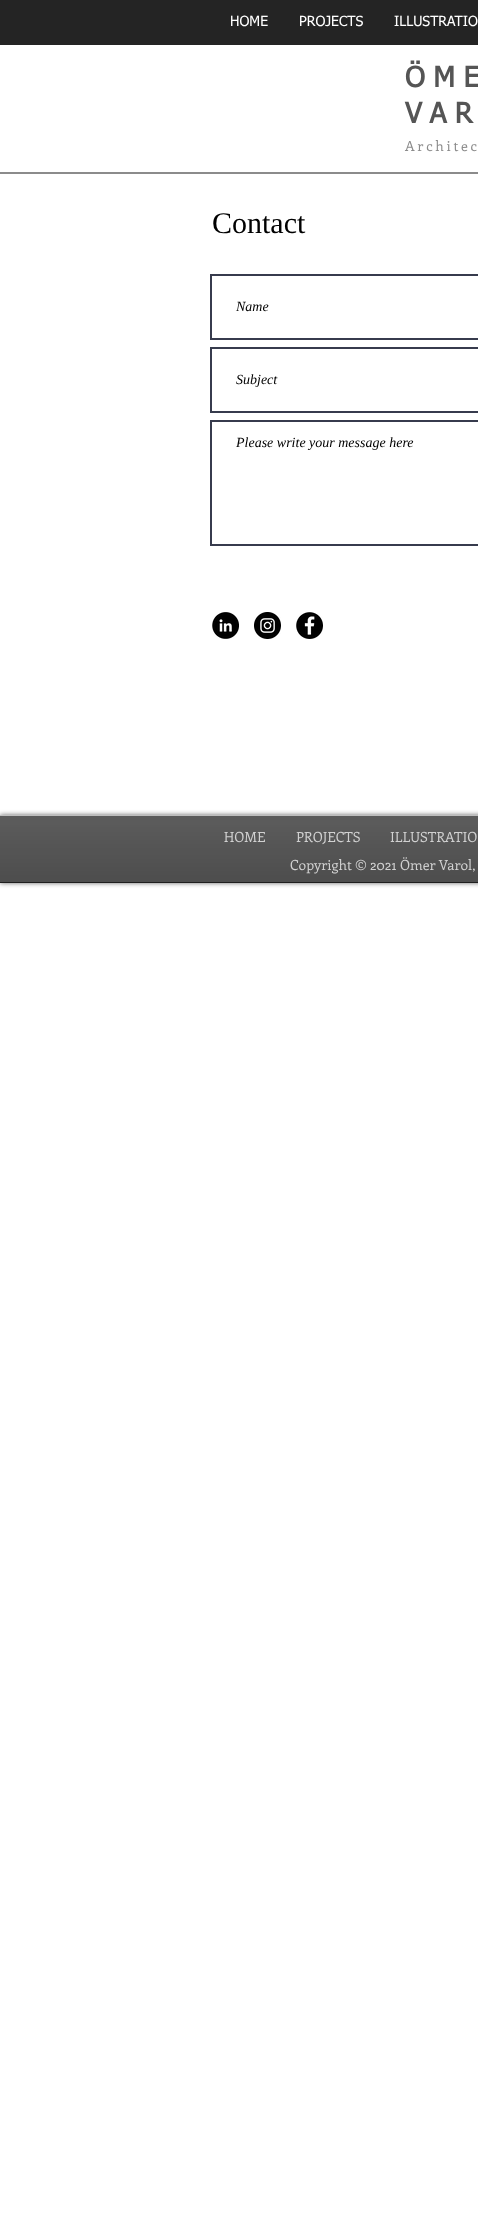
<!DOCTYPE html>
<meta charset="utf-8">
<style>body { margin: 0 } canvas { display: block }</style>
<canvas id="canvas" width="478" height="2224"></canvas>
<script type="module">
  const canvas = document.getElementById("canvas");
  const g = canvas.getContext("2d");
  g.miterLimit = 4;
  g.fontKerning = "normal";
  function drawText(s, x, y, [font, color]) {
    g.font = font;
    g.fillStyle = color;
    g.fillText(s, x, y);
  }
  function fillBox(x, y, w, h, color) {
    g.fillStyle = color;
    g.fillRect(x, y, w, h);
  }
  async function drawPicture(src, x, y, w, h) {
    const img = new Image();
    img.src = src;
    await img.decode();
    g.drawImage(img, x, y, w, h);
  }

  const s1 = ["14px tahoma", "#FFFFFF"];
  const s2 = ["bold 28px tahoma", "#555555"];
  const s3 = ["14px Enriqueta", "#8B8B8B"];
  const s4 = ["30px Liberation Serif", "#000000"];
  const s5 = ["italic 14px Liberation Serif", "#000000"];
  const s6 = ["14px Enriqueta", "#D1D1D1"];

  fillBox(0, 0, 478, 2224, "#FFFFFF");
  fillBox(0, 0, 478, 45, "#242424");
  drawText("HOME", 230, 26, s1);
  drawText("PROJECTS", 299, 26, s1);
  drawText("ILLUSTRATIO", 394, 26, s1);
  g.letterSpacing = "8.5px";
  drawText("ÖME", 405, 87, s2);
  drawText("VAR", 405, 123, s2);
  g.letterSpacing = "2.75px";
  drawText("Architec", 405, 151, s3);
  fillBox(0, 172, 478, 2, "#8B8B8B");
  g.letterSpacing = "0px";
  drawText("Contact", 212, 233, s4);
  g.strokeStyle = "#373B4D";
  g.lineWidth = 2;
  g.strokeRect(211, 275, 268, 64);
  drawText("Name", 236, 311, s5);
  g.strokeRect(211, 348, 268, 64);
  drawText("Subject", 236, 384, s5);
  g.strokeRect(211, 421, 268, 124);
  drawText("Please write your message here", 236, 447, s5);
  await drawPicture("pic1.png", 212, 612, 27, 27);
  await drawPicture("pic2.png", 254, 612, 27, 27);
  await drawPicture("pic3.png", 296, 612, 27, 27);
  g.fillStyle = "rgba(0, 0, 0, 0.6)";
  g.filter = "blur(2.5px)";
  g.beginPath();
  g.rect(0, 815, 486, 68);
  g.fill();
  g.filter = "none";
  fillBox(0, 816, 478, 66, "#242424");
  await drawPicture("pic4.png", 0, 816, 478, 66);
  fillBox(0, 882, 478, 1, "#1F1F1F");
  fillBox(0, 815, 478, 1, "#BEBEBE");
  drawText("HOME", 224, 842, s6);
  drawText("PROJECTS", 296, 842, s6);
  drawText("ILLUSTRATIO", 390, 842, s6);
  drawText("Copyright © 2021 Ömer Varol,", 290, 870, s6);
</script>
